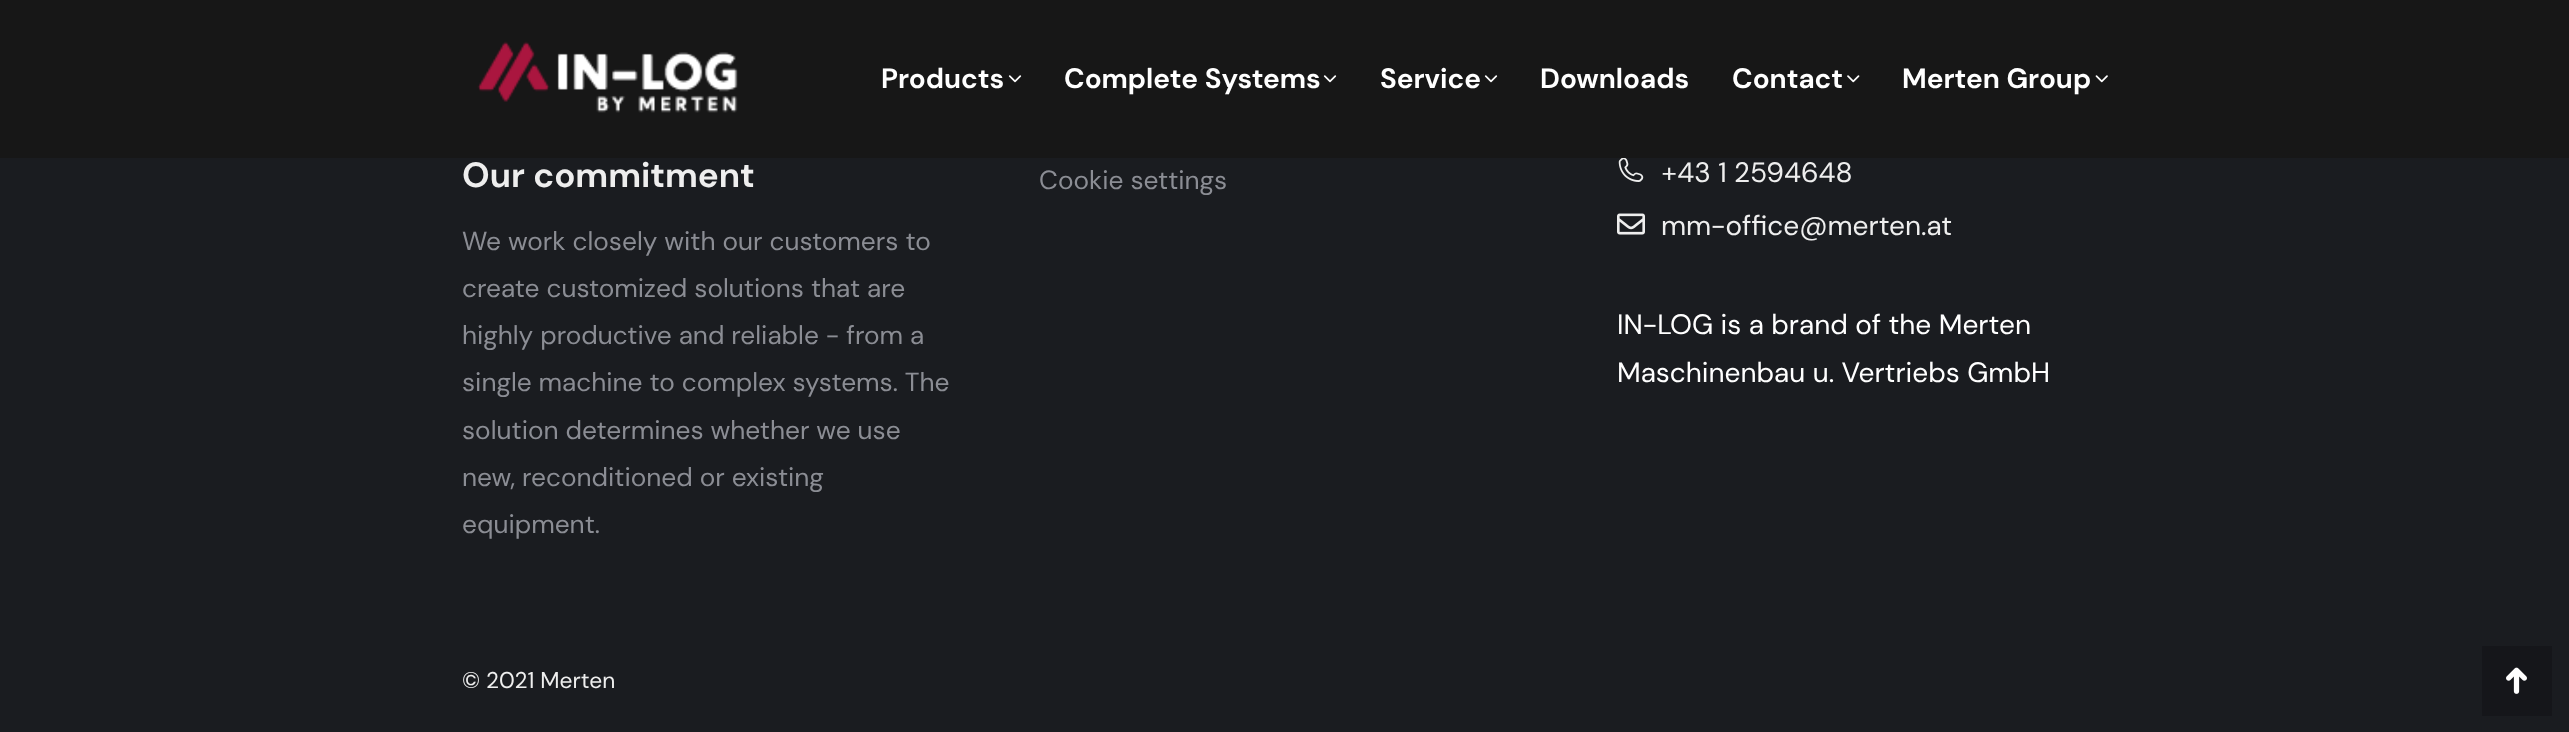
<!DOCTYPE html>
<meta charset="utf-8">
<style>body { margin: 0 } canvas { display: block }</style>
<canvas id="canvas" width="2569" height="732"></canvas>
<script type="module">
  const canvas = document.getElementById("canvas");
  const g = canvas.getContext("2d");
  g.miterLimit = 4;
  g.fontKerning = "normal";
  function drawText(s, x, y, [font, color]) {
    g.font = font;
    g.fillStyle = color;
    g.fillText(s, x, y);
  }
  function fillBox(x, y, w, h, color) {
    g.fillStyle = color;
    g.fillRect(x, y, w, h);
  }
  async function drawPicture(src, x, y, w, h) {
    const img = new Image();
    img.src = src;
    await img.decode();
    g.drawImage(img, x, y, w, h);
  }

  const s1 = ["bold 28px DM Sans", "#FFFFFF"];
  const s2 = ["bold 35px DM Sans", "#EEEEEE"];
  const s3 = ["26.25px DM Sans", "#8B8D94"];
  const s4 = ["28px DM Sans", "#EEEEEE"];
  const s5 = ["28px DM Sans", "#FFFFFF"];
  const s6 = ["22.75px DM Sans", "#EEEEEE"];

  fillBox(0, 0, 2569, 732, "#1A1C20");
  fillBox(0, 0, 2569, 158, "#171717");
  await drawPicture("pic1.png", 477, 41, 261, 72);
  drawText("Products", 881, 88, s1);
  await drawPicture("pic2.png", 1008, 75, 14, 8);
  drawText("Complete Systems", 1064, 88, s1);
  await drawPicture("pic2.png", 1323, 75, 14, 8);
  drawText("Service", 1380, 88, s1);
  await drawPicture("pic2.png", 1484, 75, 14, 8);
  drawText("Downloads", 1540, 88, s1);
  drawText("Contact", 1732, 88, s1);
  await drawPicture("pic3.png", 1847, 75, 13, 8);
  drawText("Merten Group", 1902, 88, s1);
  await drawPicture("pic4.png", 2095, 75, 13, 8);
  drawText("Our commitment", 462, 187, s2);
  drawText("We work closely with our customers to", 462, 250, s3);
  drawText("create customized solutions that are", 462, 297, s3);
  drawText("highly productive and reliable - from a", 462, 344, s3);
  drawText("single machine to complex systems. The", 462, 391, s3);
  drawText("solution determines whether we use", 462, 439, s3);
  drawText("new, reconditioned or existing", 462, 486, s3);
  drawText("equipment.", 462, 533, s3);
  drawText("Cookie settings", 1039, 189, s3);
  await drawPicture("pic5.png", 1618, 158, 26, 24);
  drawText("+43 1 2594648", 1661, 182, s4);
  await drawPicture("pic6.png", 1617, 213, 28, 22);
  drawText("mm-office@merten.at", 1661, 235, s4);
  drawText("IN-LOG is a brand of the Merten", 1617, 334, s5);
  drawText("Maschinenbau u. Vertriebs GmbH", 1617, 382, s5);
  drawText("© 2021 Merten", 462, 688, s6);
  fillBox(2482, 646, 70, 70, "#15161A");
  await drawPicture("pic7.png", 2506, 667, 21, 27);
</script>
